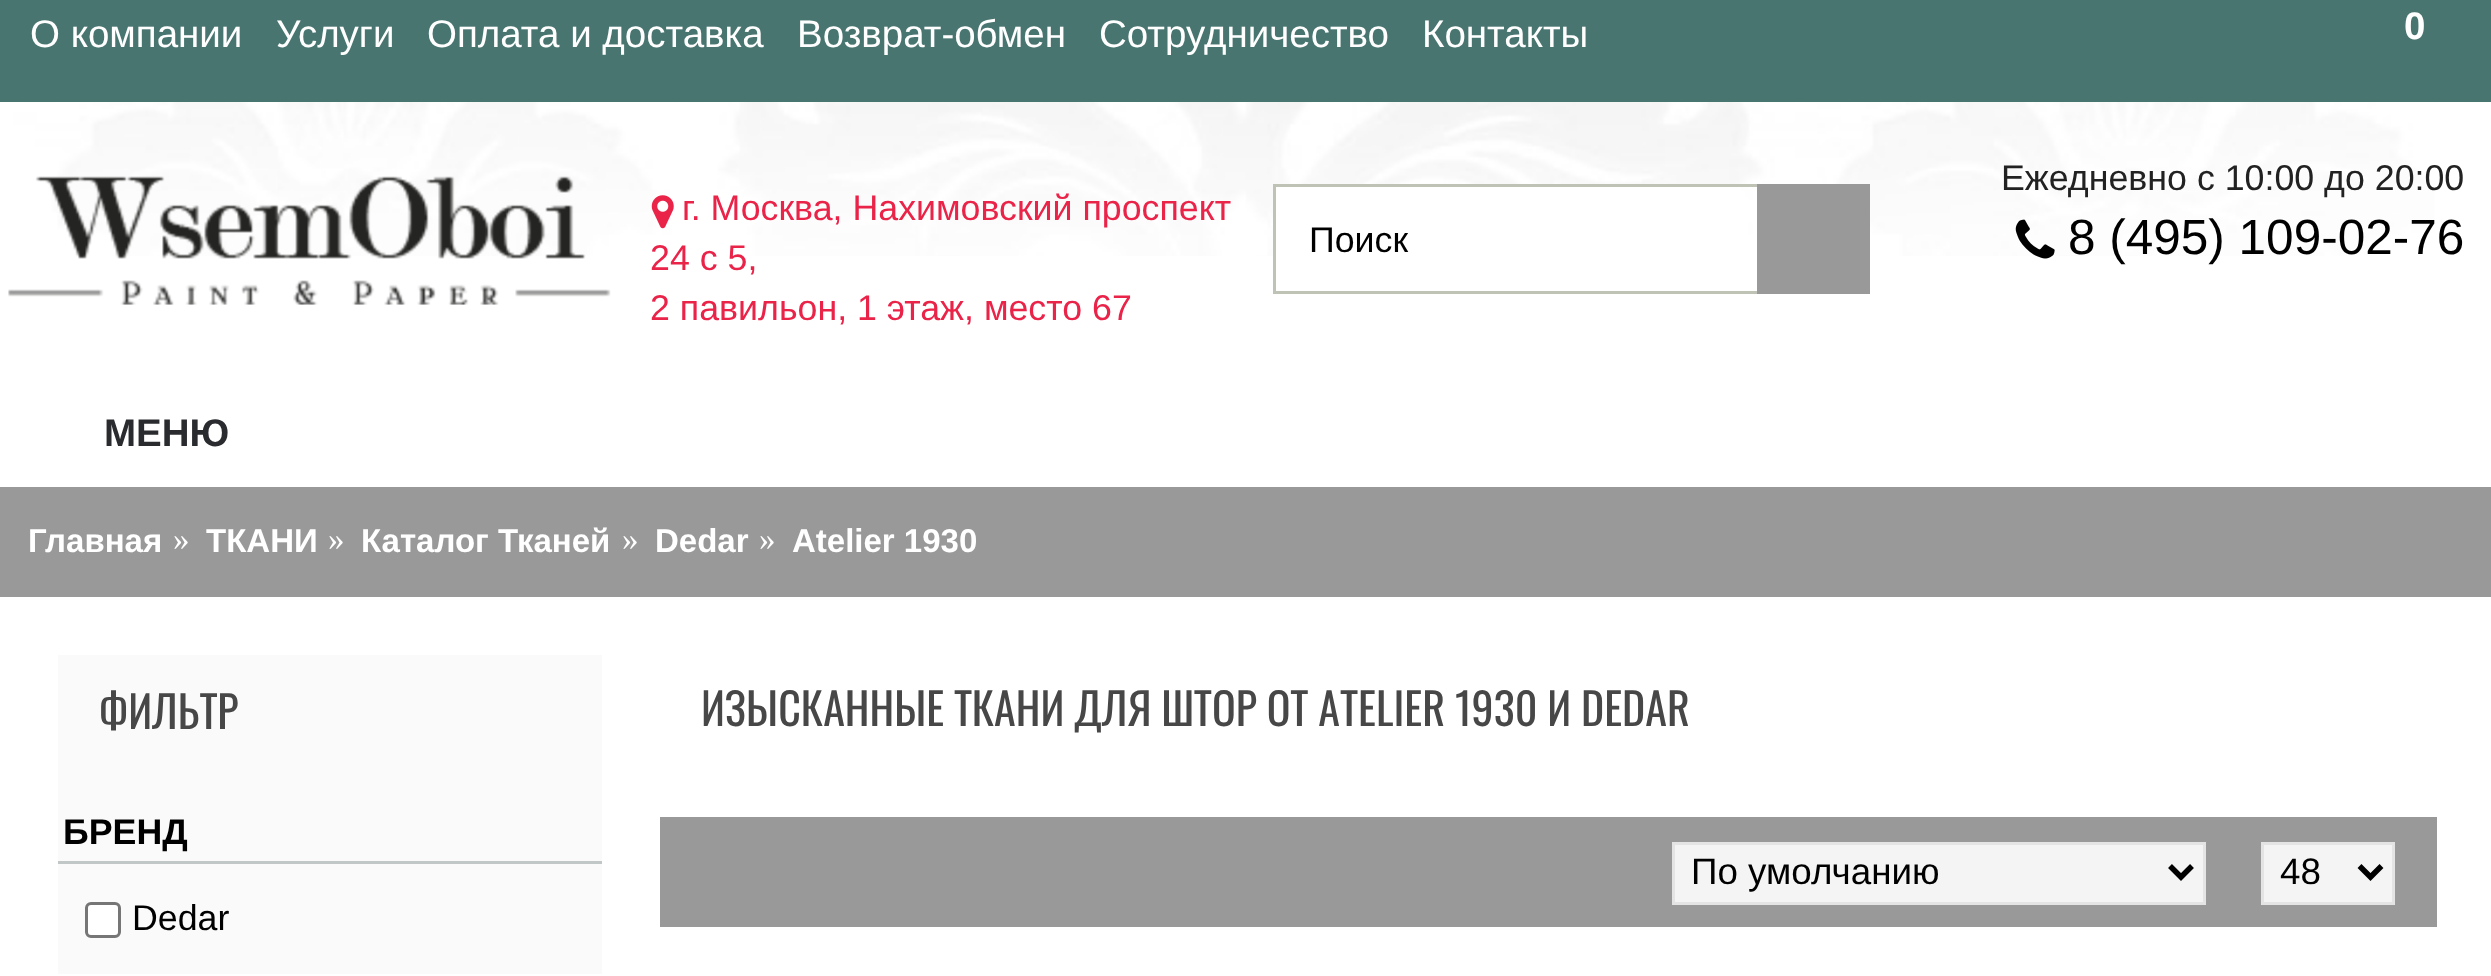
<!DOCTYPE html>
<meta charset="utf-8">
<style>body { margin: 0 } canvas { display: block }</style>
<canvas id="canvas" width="2491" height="976"></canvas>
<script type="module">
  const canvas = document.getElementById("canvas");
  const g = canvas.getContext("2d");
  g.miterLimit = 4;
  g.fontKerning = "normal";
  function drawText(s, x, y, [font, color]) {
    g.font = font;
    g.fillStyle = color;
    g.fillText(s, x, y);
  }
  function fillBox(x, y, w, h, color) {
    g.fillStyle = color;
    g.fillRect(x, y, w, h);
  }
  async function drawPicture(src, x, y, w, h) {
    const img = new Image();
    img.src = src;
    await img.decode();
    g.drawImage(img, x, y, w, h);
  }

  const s1 = ["38.5px Liberation Sans", "#FFFFFF"];
  const s2 = ["bold 38.5px Liberation Sans", "#FFFFFF"];
  const s3 = ["35.75px Liberation Sans", "#EA2349"];
  const s4 = ["35.75px Liberation Sans", "#000000"];
  const s5 = ["35.75px Liberation Sans", "#222222"];
  const s6 = ["49.5px Liberation Sans", "#000000"];
  const s7 = ["bold 38.5px Liberation Sans", "#2A2B2E"];
  const s8 = ["bold 33px Liberation Sans", "#FFFFFF"];
  const s9 = ["33px Liberation Serif", "#FFFFFF"];
  const s10 = ["44px Oswald", "#474747"];
  const s11 = ["bold 35.75px Liberation Sans", "#000000"];
  const s12 = ["36.75px Liberation Sans", "#000000"];

  fillBox(0, 0, 2491, 976, "#FFFFFF");
  await drawPicture("pic1.png", 0, 102, 2491, 154);
  fillBox(0, 0, 2491, 102, "#487570");
  drawText("О компании", 30, 47, s1);
  drawText("Услуги", 276, 47, s1);
  drawText("Оплата и доставка", 427, 47, s1);
  drawText("Возврат-обмен", 797, 47, s1);
  drawText("Сотрудничество", 1099, 47, s1);
  drawText("Контакты", 1422, 47, s1);
  drawText("0", 2404, 39, s2);
  await drawPicture("pic2.png", 8, 176, 603, 129);
  await drawPicture("pic3.png", 651, 195, 23, 34);
  drawText("г. Москва, Нахимовский проспект", 682, 220, s3);
  drawText("24 с 5,", 650, 270, s3);
  drawText("2 павильон, 1 этаж, место 67", 650, 320, s3);
  fillBox(1276, 187, 465, 69, "#FFFFFF");
  g.strokeStyle = "#BFC3B6";
  g.lineWidth = 3;
  g.strokeRect(1274.5, 185.5, 594, 107);
  drawText("Поиск", 1309, 252, s4);
  fillBox(1757, 184, 113, 110, "#999999");
  drawText("Ежедневно с 10:00 до 20:00", 2001, 190, s5);
  await drawPicture("pic4.png", 2015, 219, 40, 40);
  drawText("8 (495) 109-02-76", 2068, 254, s6);
  drawText("МЕНЮ", 104, 446, s7);
  fillBox(0, 487, 2491, 110, "#999999");
  drawText("Главная", 28, 552, s8);
  drawText("»", 173, 550, s9);
  drawText("ТКАНИ", 206, 552, s8);
  drawText("»", 328, 550, s9);
  drawText("Каталог Тканей", 361, 552, s8);
  drawText("»", 622, 550, s9);
  drawText("Dedar", 655, 552, s8);
  drawText("»", 759, 550, s9);
  drawText("Atelier 1930", 792, 552, s8);
  fillBox(58, 655, 544, 319, "#FAFAFA");
  drawText("ФИЛЬТР", 99, 729, s10);
  fillBox(58, 861, 544, 3, "#C1C6C6");
  drawText("БРЕНД", 63, 844, s11);
  g.fillStyle = "#FFFFFF";
  g.beginPath();
  g.roundRect(86.5, 903.5, 33, 33, 4.5);
  g.fill();
  g.strokeStyle = "#767676";
  g.stroke();
  drawText("Dedar", 132, 930, s4);
  g.wordSpacing = "-0.25px";
  drawText("ИЗЫСКАННЫЕ ТКАНИ ДЛЯ ШТОР ОТ ATELIER 1930 И DEDAR", 701, 726, s10);
  fillBox(660, 817, 1777, 110, "#999999");
  g.fillStyle = "#F4F4F4";
  g.beginPath();
  g.rect(1673.5, 843.5, 531, 60);
  g.fill();
  g.strokeStyle = "#E4E4E4";
  g.stroke();
  g.beginPath();
  g.moveTo(2170, 866);
  g.lineTo(2181, 877);
  g.lineTo(2192, 866);
  g.strokeStyle = "#000000";
  g.lineWidth = 5.5;
  g.stroke();
  g.wordSpacing = "0px";
  drawText("По умолчанию", 1691, 884, s12);
  g.fillStyle = "#F4F4F4";
  g.beginPath();
  g.rect(2262.5, 843.5, 131, 60);
  g.fill();
  g.strokeStyle = "#E4E4E4";
  g.lineWidth = 3;
  g.stroke();
  g.beginPath();
  g.moveTo(2359.5, 866);
  g.lineTo(2370.5, 877);
  g.lineTo(2381.5, 866);
  g.strokeStyle = "#000000";
  g.lineWidth = 5.5;
  g.stroke();
  drawText("48", 2280, 884, s12);
</script>
